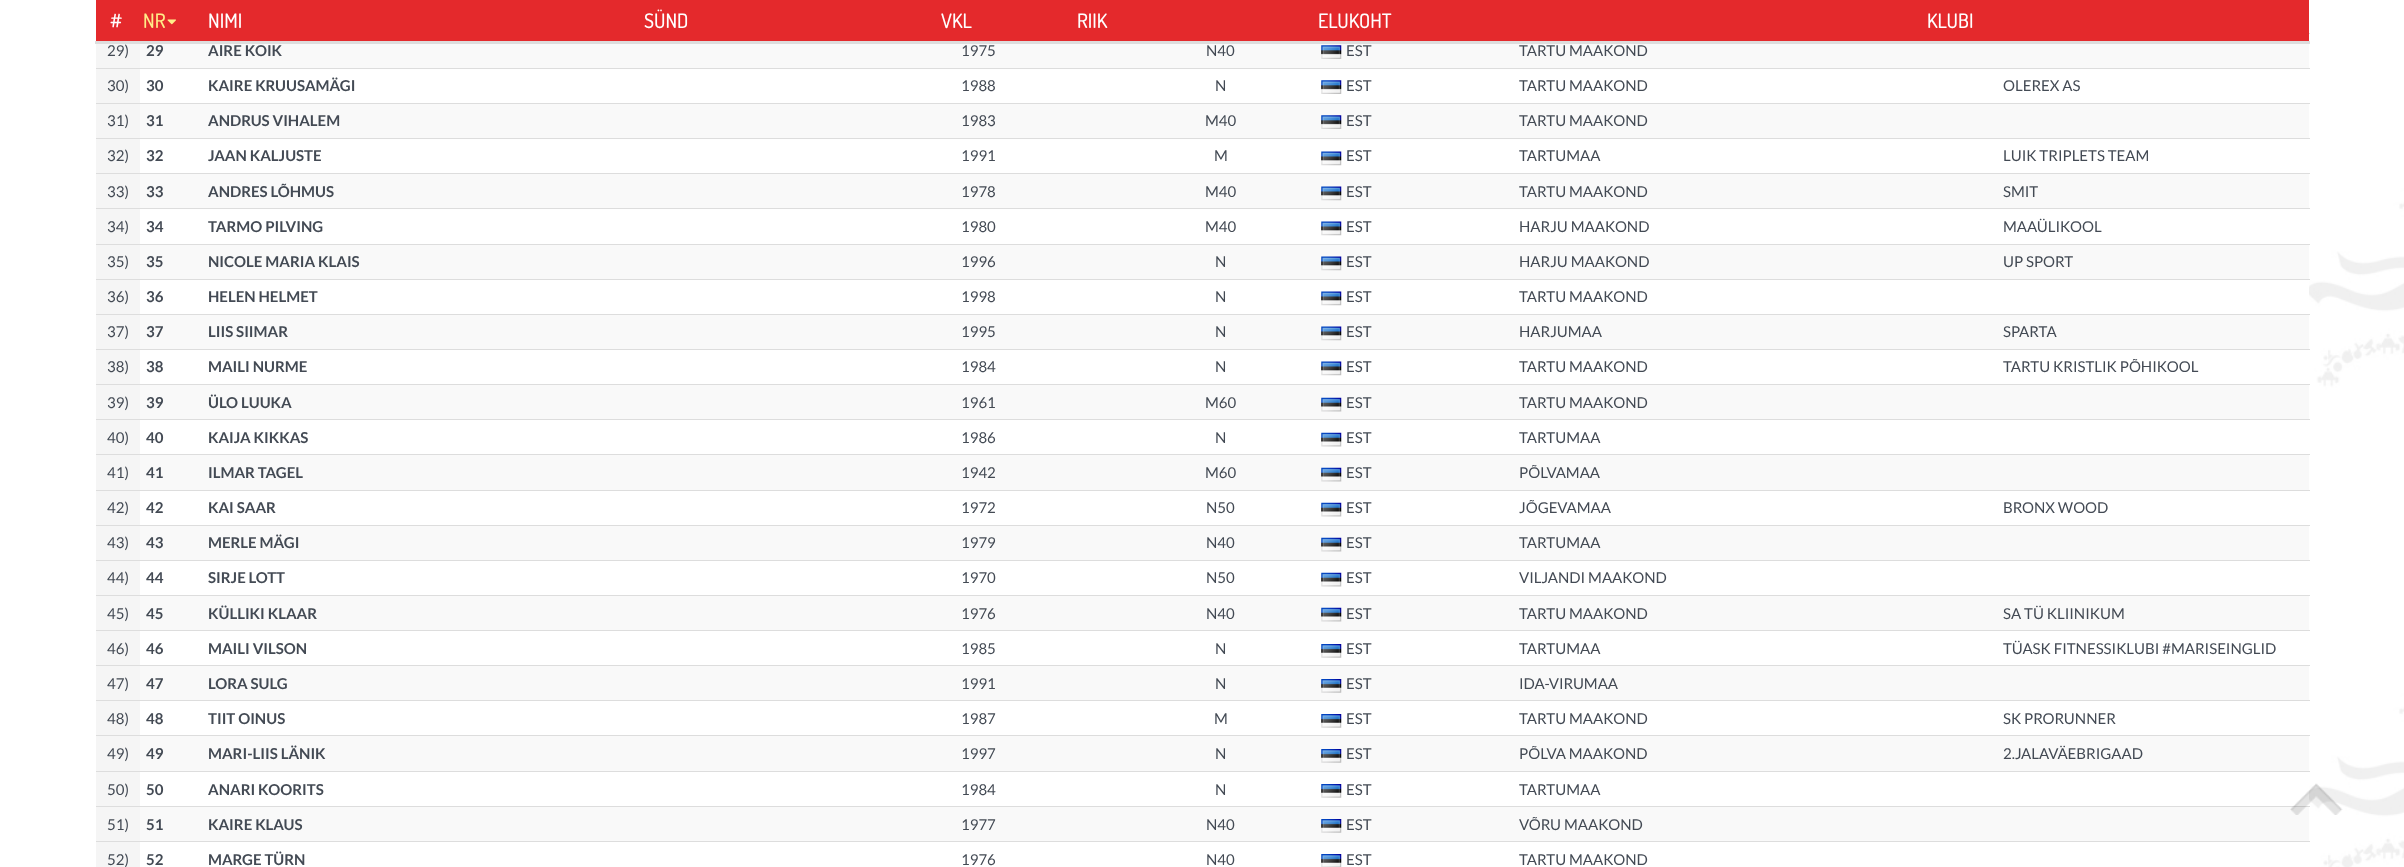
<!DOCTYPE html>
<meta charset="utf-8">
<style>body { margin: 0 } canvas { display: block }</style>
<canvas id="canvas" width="2404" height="867"></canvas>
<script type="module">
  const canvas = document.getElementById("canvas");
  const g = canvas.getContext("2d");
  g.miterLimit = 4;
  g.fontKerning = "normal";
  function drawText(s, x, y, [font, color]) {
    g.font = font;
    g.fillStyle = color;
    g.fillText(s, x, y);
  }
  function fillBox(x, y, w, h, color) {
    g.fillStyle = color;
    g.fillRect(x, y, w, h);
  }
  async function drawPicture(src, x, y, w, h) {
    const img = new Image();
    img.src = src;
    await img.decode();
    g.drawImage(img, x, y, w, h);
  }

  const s1 = ["500 20px Dosis", "#FFFFFF"];
  const s2 = ["500 20px Dosis", "#FFEC88"];
  const s3 = ["15px Lato", "#434A54"];
  const s4 = ["bold 15px Lato", "#434A54"];

  fillBox(0, 0, 2404, 867, "#FFFFFF");
  await drawPicture("pic1.png", 2309, 130, 95, 737);
  fillBox(96, 0, 2213, 41, "#E4292C");
  drawText("#", 110, 28, s1);
  drawText("NR", 143, 28, s2);
  await drawPicture("pic2.png", 167, 19, 9, 6);
  drawText("NIMI", 208, 28, s1);
  drawText("SÜND", 644, 28, s1);
  drawText("VKL", 941, 28, s1);
  drawText("RIIK", 1077, 28, s1);
  drawText("ELUKOHT", 1318, 28, s1);
  fillBox(95, 41, 2215, 3, "#DDDDDD");
  drawText("KLUBI", 1927, 28, s1);
  fillBox(140, 44, 2169, 24, "#F9F9F9");
  fillBox(2309, 33, 1, 1, "#DDDDDD");
  fillBox(96, 44, 44, 24, "#F5F5F5");
  drawText("29)", 107, 56, s3);
  drawText("29", 146, 56, s4);
  drawText("AIRE KOIK", 208, 56, s4);
  drawText("1975", 961, 56, s3);
  drawText("N40", 1206, 56, s3);
  await drawPicture("pic3.png", 1321, 45, 21, 14);
  drawText("EST", 1346, 56, s3);
  drawText("TARTU MAAKOND", 1519, 56, s3);
  fillBox(96, 69, 44, 34, "#F5F5F5");
  drawText("30)", 107, 91, s3);
  drawText("30", 146, 91, s4);
  drawText("KAIRE KRUUSAMÄGI", 208, 91, s4);
  drawText("1988", 961, 91, s3);
  drawText("N", 1215, 91, s3);
  await drawPicture("pic4.png", 1321, 80, 21, 14);
  drawText("EST", 1346, 91, s3);
  drawText("TARTU MAAKOND", 1519, 91, s3);
  fillBox(96, 68, 2214, 1, "#DDDDDD");
  drawText("OLEREX AS", 2003, 91, s3);
  fillBox(140, 104, 2169, 34, "#F9F9F9");
  fillBox(96, 103, 2214, 1, "#DDDDDD");
  fillBox(96, 104, 44, 34, "#F5F5F5");
  drawText("31)", 107, 126, s3);
  drawText("31", 146, 126, s4);
  drawText("ANDRUS VIHALEM", 208, 126, s4);
  drawText("1983", 961, 126, s3);
  drawText("M40", 1205, 126, s3);
  await drawPicture("pic3.png", 1321, 115, 21, 14);
  drawText("EST", 1346, 126, s3);
  drawText("TARTU MAAKOND", 1519, 126, s3);
  fillBox(96, 139, 44, 34, "#F5F5F5");
  drawText("32)", 107, 161, s3);
  drawText("32", 146, 161, s4);
  drawText("JAAN KALJUSTE", 208, 161, s4);
  drawText("1991", 961, 161, s3);
  drawText("M", 1214, 161, s3);
  await drawPicture("pic5.png", 1321, 151, 21, 15);
  drawText("EST", 1346, 161, s3);
  drawText("TARTUMAA", 1519, 161, s3);
  fillBox(96, 138, 2214, 1, "#DDDDDD");
  drawText("LUIK TRIPLETS TEAM", 2003, 161, s3);
  fillBox(140, 174, 2169, 34, "#F9F9F9");
  fillBox(96, 174, 44, 34, "#F5F5F5");
  drawText("33)", 107, 197, s3);
  drawText("33", 146, 197, s4);
  drawText("ANDRES LÕHMUS", 208, 197, s4);
  drawText("1978", 961, 197, s3);
  drawText("M40", 1205, 197, s3);
  await drawPicture("pic6.png", 1321, 186, 21, 15);
  drawText("EST", 1346, 197, s3);
  drawText("TARTU MAAKOND", 1519, 197, s3);
  fillBox(96, 173, 2214, 1, "#DDDDDD");
  drawText("SMIT", 2003, 197, s3);
  fillBox(96, 209, 44, 35, "#F5F5F5");
  drawText("34)", 107, 232, s3);
  drawText("34", 146, 232, s4);
  drawText("TARMO PILVING", 208, 232, s4);
  drawText("1980", 961, 232, s3);
  drawText("M40", 1205, 232, s3);
  await drawPicture("pic5.png", 1321, 221, 21, 15);
  drawText("EST", 1346, 232, s3);
  drawText("HARJU MAAKOND", 1519, 232, s3);
  fillBox(96, 208, 2214, 1, "#DDDDDD");
  drawText("MAAÜLIKOOL", 2003, 232, s3);
  fillBox(140, 245, 2169, 34, "#F9F9F9");
  fillBox(96, 245, 44, 34, "#F5F5F5");
  drawText("35)", 107, 267, s3);
  drawText("35", 146, 267, s4);
  drawText("NICOLE MARIA KLAIS", 208, 267, s4);
  drawText("1996", 961, 267, s3);
  drawText("N", 1215, 267, s3);
  await drawPicture("pic6.png", 1321, 256, 21, 15);
  drawText("EST", 1346, 267, s3);
  drawText("HARJU MAAKOND", 1519, 267, s3);
  fillBox(96, 244, 2214, 1, "#DDDDDD");
  drawText("UP SPORT", 2003, 267, s3);
  fillBox(96, 279, 2214, 1, "#DDDDDD");
  fillBox(96, 280, 44, 34, "#F5F5F5");
  drawText("36)", 107, 302, s3);
  drawText("36", 146, 302, s4);
  drawText("HELEN HELMET", 208, 302, s4);
  drawText("1998", 961, 302, s3);
  drawText("N", 1215, 302, s3);
  await drawPicture("pic5.png", 1321, 291, 21, 15);
  drawText("EST", 1346, 302, s3);
  drawText("TARTU MAAKOND", 1519, 302, s3);
  fillBox(140, 315, 2169, 34, "#F9F9F9");
  fillBox(96, 315, 44, 34, "#F5F5F5");
  drawText("37)", 107, 337, s3);
  drawText("37", 146, 337, s4);
  drawText("LIIS SIIMAR", 208, 337, s4);
  drawText("1995", 961, 337, s3);
  drawText("N", 1215, 337, s3);
  await drawPicture("pic6.png", 1321, 326, 21, 15);
  drawText("EST", 1346, 337, s3);
  drawText("HARJUMAA", 1519, 337, s3);
  fillBox(96, 314, 2214, 1, "#DDDDDD");
  drawText("SPARTA", 2003, 337, s3);
  fillBox(96, 350, 44, 34, "#F5F5F5");
  drawText("38)", 107, 372, s3);
  drawText("38", 146, 372, s4);
  drawText("MAILI NURME", 208, 372, s4);
  drawText("1984", 961, 372, s3);
  drawText("N", 1215, 372, s3);
  await drawPicture("pic5.png", 1321, 361, 21, 15);
  drawText("EST", 1346, 372, s3);
  drawText("TARTU MAAKOND", 1519, 372, s3);
  fillBox(96, 349, 2214, 1, "#DDDDDD");
  drawText("TARTU KRISTLIK PÕHIKOOL", 2003, 372, s3);
  fillBox(140, 385, 2169, 34, "#F9F9F9");
  fillBox(96, 384, 2214, 1, "#DDDDDD");
  fillBox(96, 385, 44, 34, "#F5F5F5");
  drawText("39)", 107, 408, s3);
  drawText("39", 146, 408, s4);
  drawText("ÜLO LUUKA", 208, 408, s4);
  drawText("1961", 961, 408, s3);
  drawText("M60", 1205, 408, s3);
  await drawPicture("pic7.png", 1321, 397, 21, 15);
  drawText("EST", 1346, 408, s3);
  drawText("TARTU MAAKOND", 1519, 408, s3);
  fillBox(96, 419, 2214, 1, "#DDDDDD");
  fillBox(96, 420, 44, 34, "#F5F5F5");
  drawText("40)", 107, 443, s3);
  drawText("40", 146, 443, s4);
  drawText("KAIJA KIKKAS", 208, 443, s4);
  drawText("1986", 961, 443, s3);
  drawText("N", 1215, 443, s3);
  await drawPicture("pic8.png", 1321, 432, 21, 15);
  drawText("EST", 1346, 443, s3);
  drawText("TARTUMAA", 1519, 443, s3);
  fillBox(140, 455, 2169, 35, "#F9F9F9");
  fillBox(96, 454, 2214, 1, "#DDDDDD");
  fillBox(96, 455, 44, 35, "#F5F5F5");
  drawText("41)", 107, 478, s3);
  drawText("41", 146, 478, s4);
  drawText("ILMAR TAGEL", 208, 478, s4);
  drawText("1942", 961, 478, s3);
  drawText("M60", 1205, 478, s3);
  await drawPicture("pic7.png", 1321, 467, 21, 15);
  drawText("EST", 1346, 478, s3);
  drawText("PÕLVAMAA", 1519, 478, s3);
  fillBox(96, 491, 44, 34, "#F5F5F5");
  drawText("42)", 107, 513, s3);
  drawText("42", 146, 513, s4);
  drawText("KAI SAAR", 208, 513, s4);
  drawText("1972", 961, 513, s3);
  drawText("N50", 1206, 513, s3);
  await drawPicture("pic8.png", 1321, 502, 21, 15);
  drawText("EST", 1346, 513, s3);
  drawText("JÕGEVAMAA", 1519, 513, s3);
  fillBox(96, 490, 2214, 1, "#DDDDDD");
  drawText("BRONX WOOD", 2003, 513, s3);
  fillBox(140, 526, 2169, 34, "#F9F9F9");
  fillBox(96, 525, 2214, 1, "#DDDDDD");
  fillBox(96, 526, 44, 34, "#F5F5F5");
  drawText("43)", 107, 548, s3);
  drawText("43", 146, 548, s4);
  drawText("MERLE MÄGI", 208, 548, s4);
  drawText("1979", 961, 548, s3);
  drawText("N40", 1206, 548, s3);
  await drawPicture("pic7.png", 1321, 537, 21, 15);
  drawText("EST", 1346, 548, s3);
  drawText("TARTUMAA", 1519, 548, s3);
  fillBox(96, 560, 2214, 1, "#DDDDDD");
  fillBox(96, 561, 44, 34, "#F5F5F5");
  drawText("44)", 107, 583, s3);
  drawText("44", 146, 583, s4);
  drawText("SIRJE LOTT", 208, 583, s4);
  drawText("1970", 961, 583, s3);
  drawText("N50", 1206, 583, s3);
  await drawPicture("pic8.png", 1321, 572, 21, 15);
  drawText("EST", 1346, 583, s3);
  drawText("VILJANDI MAAKOND", 1519, 583, s3);
  fillBox(140, 596, 2169, 34, "#F9F9F9");
  fillBox(96, 596, 44, 34, "#F5F5F5");
  drawText("45)", 107, 619, s3);
  drawText("45", 146, 619, s4);
  drawText("KÜLLIKI KLAAR", 208, 619, s4);
  drawText("1976", 961, 619, s3);
  drawText("N40", 1206, 619, s3);
  await drawPicture("pic7.png", 1321, 607, 21, 15);
  drawText("EST", 1346, 619, s3);
  drawText("TARTU MAAKOND", 1519, 619, s3);
  fillBox(96, 595, 2214, 1, "#DDDDDD");
  drawText("SA TÜ KLIINIKUM", 2003, 619, s3);
  fillBox(96, 631, 44, 34, "#F5F5F5");
  drawText("46)", 107, 654, s3);
  drawText("46", 146, 654, s4);
  drawText("MAILI VILSON", 208, 654, s4);
  drawText("1985", 961, 654, s3);
  drawText("N", 1215, 654, s3);
  await drawPicture("pic9.png", 1321, 644, 21, 14);
  drawText("EST", 1346, 654, s3);
  drawText("TARTUMAA", 1519, 654, s3);
  fillBox(96, 630, 2214, 1, "#DDDDDD");
  drawText("TÜASK FITNESSIKLUBI #MARISEINGLID", 2003, 654, s3);
  fillBox(140, 666, 2169, 34, "#F9F9F9");
  fillBox(96, 665, 2214, 1, "#DDDDDD");
  fillBox(96, 666, 44, 34, "#F5F5F5");
  drawText("47)", 107, 689, s3);
  drawText("47", 146, 689, s4);
  drawText("LORA SULG", 208, 689, s4);
  drawText("1991", 961, 689, s3);
  drawText("N", 1215, 689, s3);
  await drawPicture("pic10.png", 1321, 679, 21, 14);
  drawText("EST", 1346, 689, s3);
  drawText("IDA-VIRUMAA", 1519, 689, s3);
  fillBox(96, 701, 44, 34, "#F5F5F5");
  drawText("48)", 107, 724, s3);
  drawText("48", 146, 724, s4);
  drawText("TIIT OINUS", 208, 724, s4);
  drawText("1987", 961, 724, s3);
  drawText("M", 1214, 724, s3);
  await drawPicture("pic9.png", 1321, 714, 21, 14);
  drawText("EST", 1346, 724, s3);
  drawText("TARTU MAAKOND", 1519, 724, s3);
  fillBox(96, 700, 2214, 1, "#DDDDDD");
  drawText("SK PRORUNNER", 2003, 724, s3);
  fillBox(140, 736, 2169, 35, "#F9F9F9");
  fillBox(96, 736, 44, 35, "#F5F5F5");
  drawText("49)", 107, 759, s3);
  drawText("49", 146, 759, s4);
  drawText("MARI-LIIS LÄNIK", 208, 759, s4);
  drawText("1997", 961, 759, s3);
  drawText("N", 1215, 759, s3);
  await drawPicture("pic10.png", 1321, 749, 21, 14);
  drawText("EST", 1346, 759, s3);
  drawText("PÕLVA MAAKOND", 1519, 759, s3);
  fillBox(96, 735, 2214, 1, "#DDDDDD");
  drawText("2.JALAVÄEBRIGAAD", 2003, 759, s3);
  fillBox(96, 771, 2214, 1, "#DDDDDD");
  fillBox(96, 772, 44, 34, "#F5F5F5");
  drawText("50)", 107, 795, s3);
  drawText("50", 146, 795, s4);
  drawText("ANARI KOORITS", 208, 795, s4);
  drawText("1984", 961, 795, s3);
  drawText("N", 1215, 795, s3);
  await drawPicture("pic9.png", 1321, 784, 21, 14);
  drawText("EST", 1346, 795, s3);
  drawText("TARTUMAA", 1519, 795, s3);
  fillBox(140, 807, 2169, 34, "#F9F9F9");
  fillBox(96, 806, 2214, 1, "#DDDDDD");
  fillBox(96, 807, 44, 34, "#F5F5F5");
  drawText("51)", 107, 830, s3);
  drawText("51", 146, 830, s4);
  drawText("KAIRE KLAUS", 208, 830, s4);
  drawText("1977", 961, 830, s3);
  drawText("N40", 1206, 830, s3);
  await drawPicture("pic10.png", 1321, 819, 21, 14);
  drawText("EST", 1346, 830, s3);
  drawText("VÕRU MAAKOND", 1519, 830, s3);
  fillBox(96, 841, 2214, 1, "#DDDDDD");
  fillBox(96, 842, 44, 25, "#F5F5F5");
  drawText("52)", 107, 865, s3);
  drawText("52", 146, 865, s4);
  drawText("MARGE TÜRN", 208, 865, s4);
  drawText("1976", 961, 865, s3);
  drawText("N40", 1206, 865, s3);
  await drawPicture("pic11.png", 1321, 854, 21, 13);
  drawText("EST", 1346, 865, s3);
  drawText("TARTU MAAKOND", 1519, 865, s3);
  await drawPicture("pic12.png", 2290, 783, 53, 32);
</script>
